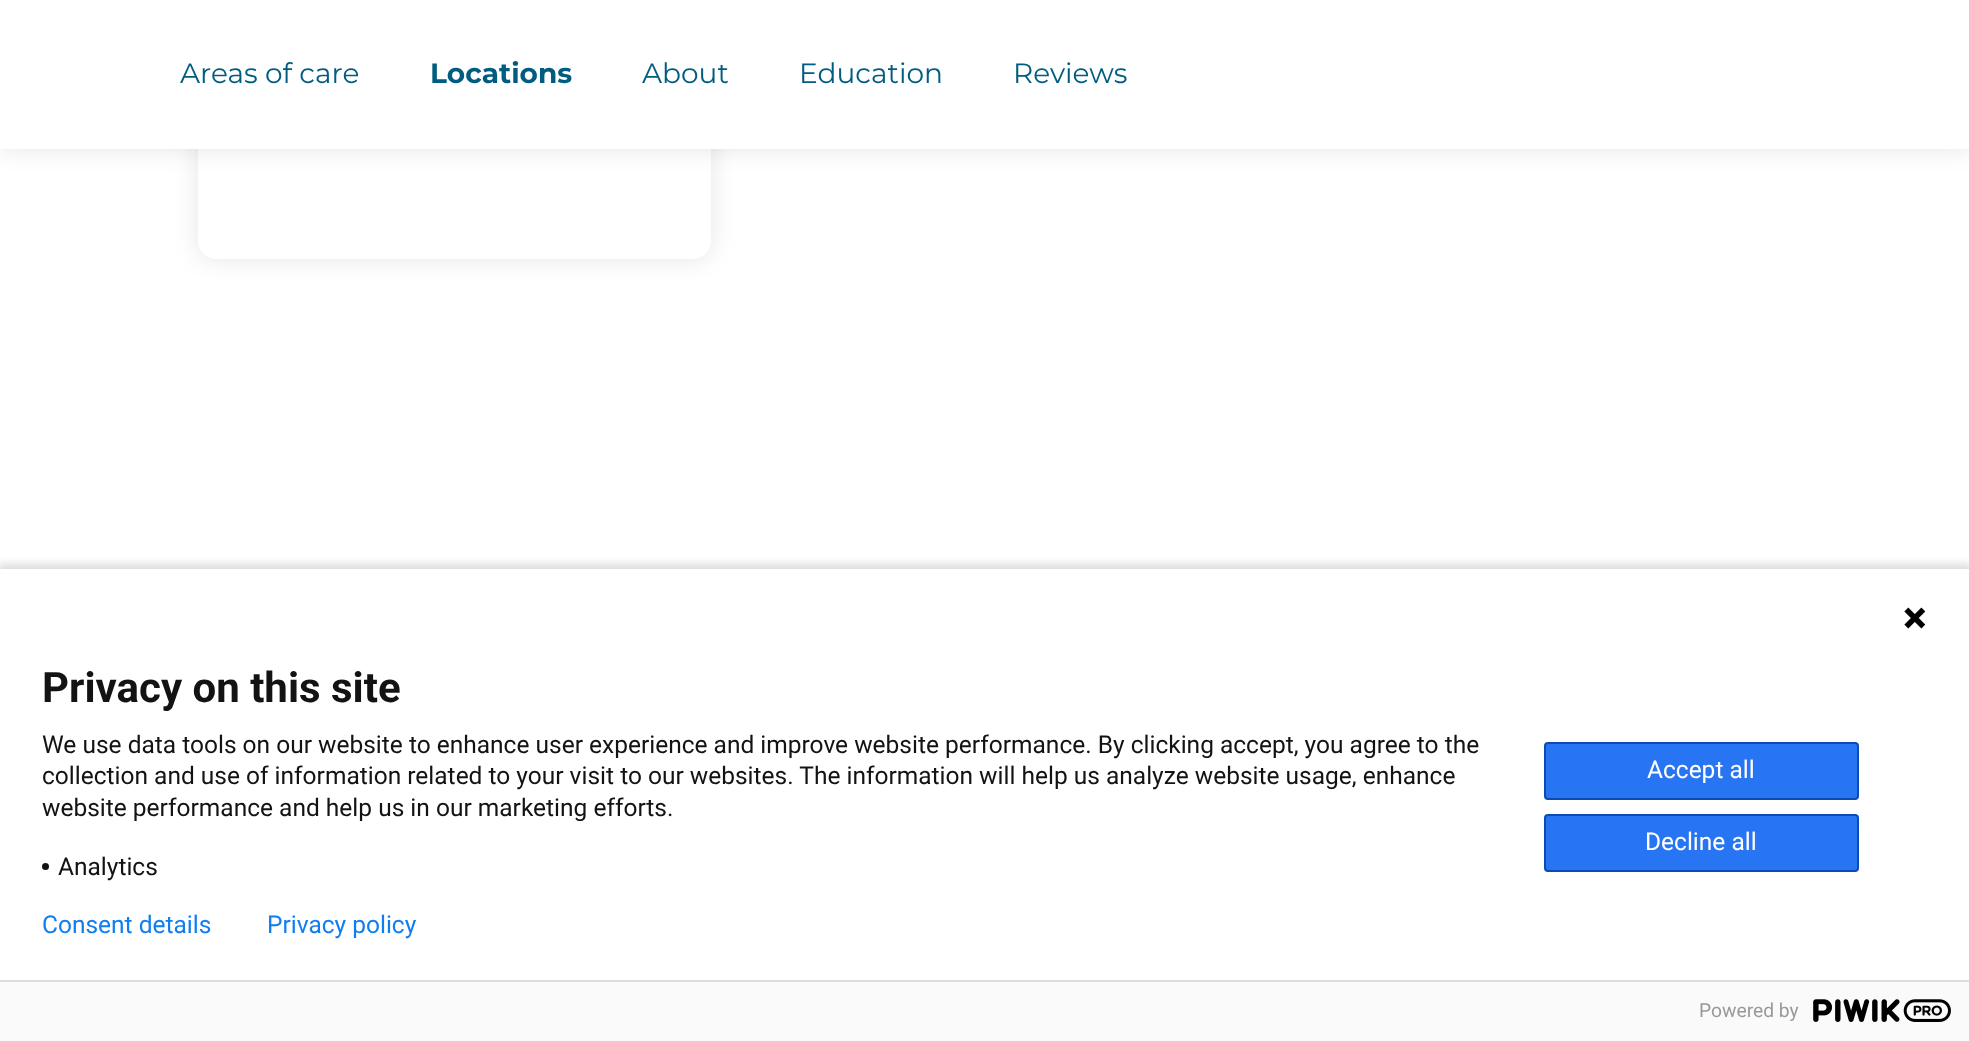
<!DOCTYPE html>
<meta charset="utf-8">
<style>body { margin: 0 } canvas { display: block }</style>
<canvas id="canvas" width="1969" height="1041"></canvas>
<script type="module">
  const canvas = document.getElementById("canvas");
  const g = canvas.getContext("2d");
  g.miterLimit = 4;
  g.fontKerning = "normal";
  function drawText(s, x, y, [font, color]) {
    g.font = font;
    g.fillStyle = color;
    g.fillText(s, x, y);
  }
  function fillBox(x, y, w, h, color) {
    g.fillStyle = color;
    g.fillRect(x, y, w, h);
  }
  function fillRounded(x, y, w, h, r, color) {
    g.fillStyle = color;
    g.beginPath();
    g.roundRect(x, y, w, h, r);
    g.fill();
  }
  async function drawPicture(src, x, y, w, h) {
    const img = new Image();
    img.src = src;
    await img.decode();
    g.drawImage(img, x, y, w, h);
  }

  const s1 = ["28px Montserrat", "#005C80"];
  const s2 = ["bold 28px Montserrat", "#005C80"];
  const s3 = ["bold 42px Roboto", "#131313"];
  const s4 = ["24.5px Roboto", "#131313"];
  const s5 = ["24.5px Roboto", "#FFFFFF"];
  const s6 = ["24.5px Roboto", "#107EF1"];
  const s7 = ["19.25px Roboto", "#999999"];

  fillBox(0, 0, 1969, 1041, "#FFFFFF");
  g.fillStyle = "rgba(0, 0, 0, 0.1)";
  g.filter = "blur(12px)";
  g.beginPath();
  g.roundRect(198, -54, 513, 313, 18);
  g.fill();
  g.filter = "none";
  fillRounded(198, -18, 513, 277, 18, "#FFFFFF");
  g.fillStyle = "rgba(0, 0, 0, 0.1)";
  g.filter = "blur(12px)";
  g.beginPath();
  g.rect(0, 0, 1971, 149);
  g.fill();
  g.filter = "none";
  fillBox(0, 0, 1969, 149, "#FFFFFF");
  drawText("Areas of care", 180, 83, s1);
  drawText("Locations", 430, 83, s2);
  drawText("About", 642, 83, s1);
  drawText("Education", 799, 83, s1);
  drawText("Reviews", 1013, 83, s1);
  g.fillStyle = "rgba(0, 0, 0, 0.14)";
  g.filter = "blur(4.5px)";
  g.beginPath();
  g.rect(-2, 564, 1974, 476);
  g.fill();
  g.filter = "none";
  fillBox(0, 569, 1969, 411, "#FFFFFF");
  await drawPicture("pic1.png", 1904, 607, 22, 22);
  drawText("Privacy on this site", 42, 702, s3);
  drawText("We use data tools on our website to enhance user experience and improve website performance. By clicking accept, you agree to the", 42, 753, s4);
  drawText("collection and use of information related to your visit to our websites. The information will help us analyze website usage, enhance", 42, 784, s4);
  drawText("website performance and help us in our marketing efforts.", 42, 816, s4);
  g.beginPath();
  g.arc(45.5, 866.5, 3.5, 0, Math.PI * 2);
  g.fill();
  drawText("Analytics", 58, 875, s4);
  g.fillStyle = "#2775F2";
  g.beginPath();
  g.roundRect(1545, 743, 313, 56, 3);
  g.fill();
  g.strokeStyle = "#0B4BB3";
  g.lineWidth = 2;
  g.stroke();
  drawText("Accept all", 1647, 778, s5);
  g.fillStyle = "#2775F2";
  g.beginPath();
  g.roundRect(1545, 815, 313, 56, 3);
  g.fill();
  g.stroke();
  drawText("Decline all", 1645, 850, s5);
  drawText("Consent details", 42, 933, s6);
  drawText("Privacy policy", 267, 933, s6);
  fillBox(0, 982, 1969, 59, "#FAFAFA");
  fillBox(0, 980, 1969, 2, "#DDDDDD");
  drawText("Powered by", 1699, 1017, s7);
  await drawPicture("pic2.png", 1813, 999, 138, 23);
</script>
